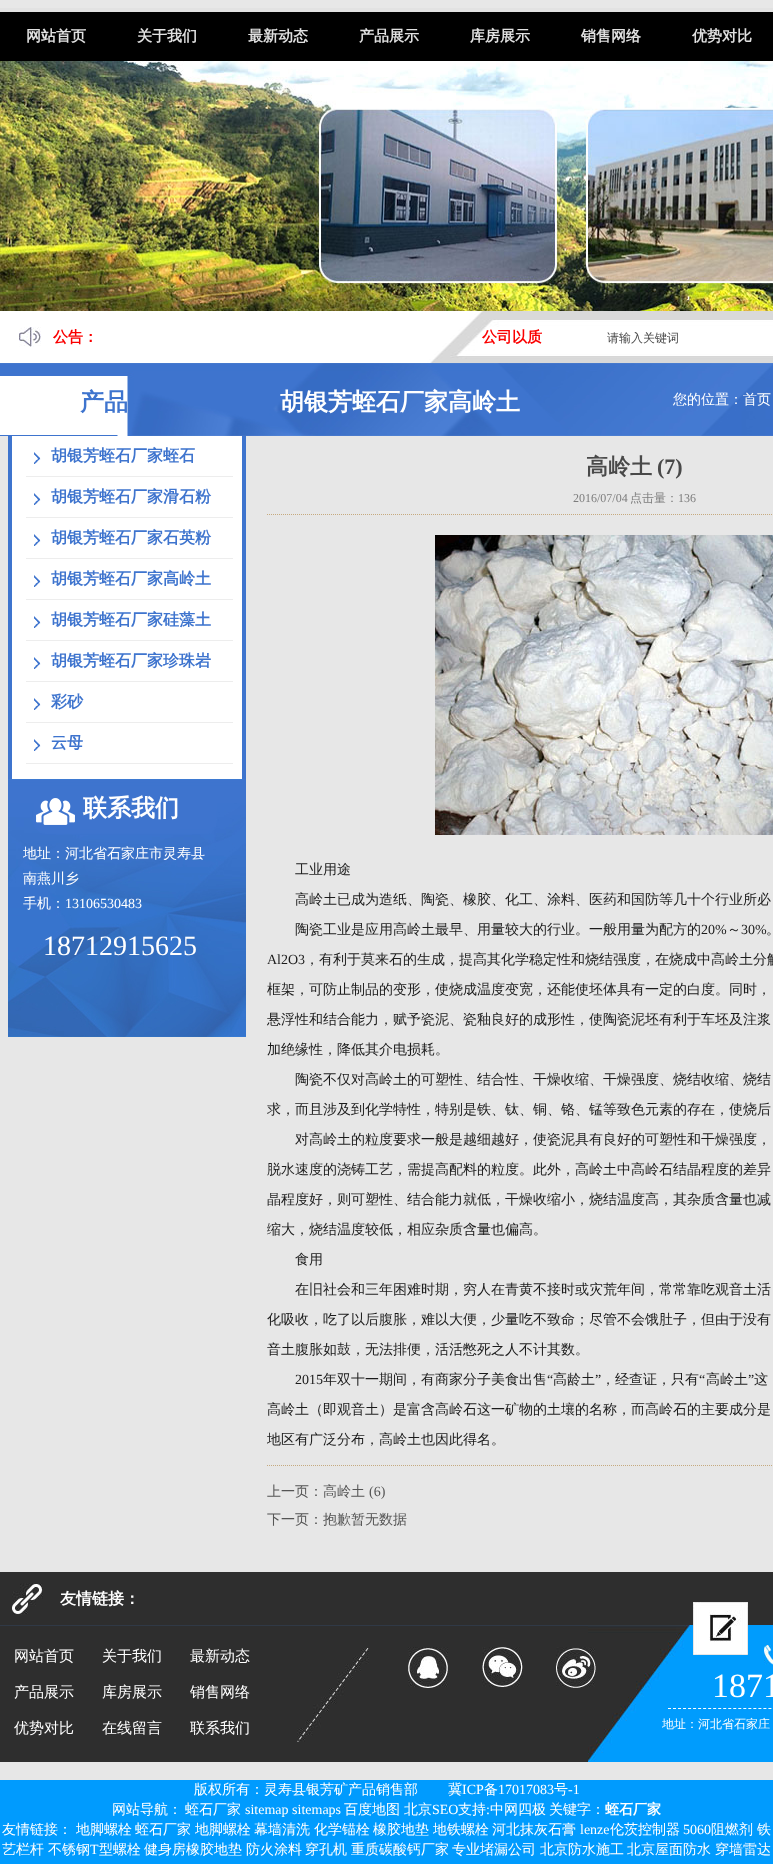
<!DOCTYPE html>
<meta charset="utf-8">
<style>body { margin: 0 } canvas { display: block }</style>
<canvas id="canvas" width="773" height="1864"></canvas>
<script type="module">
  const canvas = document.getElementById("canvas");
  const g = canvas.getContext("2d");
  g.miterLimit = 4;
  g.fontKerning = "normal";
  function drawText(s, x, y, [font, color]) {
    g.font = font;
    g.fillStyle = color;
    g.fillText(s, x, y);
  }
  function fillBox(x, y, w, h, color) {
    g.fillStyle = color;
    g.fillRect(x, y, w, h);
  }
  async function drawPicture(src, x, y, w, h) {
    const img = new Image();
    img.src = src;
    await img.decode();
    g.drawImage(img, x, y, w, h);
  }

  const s1 = ["bold 15px WenQuanYi Zen Hei", "#E0E0E0"];
  const s2 = ["bold 15px WenQuanYi Zen Hei", "#FA0000"];
  const s3 = ["500 12px WenQuanYi Zen Hei", "#494949"];
  const s4 = ["bold 24px WenQuanYi Zen Hei", "#3E74CE"];
  const s5 = ["bold 24px WenQuanYi Zen Hei", "#FFFFFF"];
  const s6 = ["500 14px WenQuanYi Zen Hei", "#FFFFFF"];
  const s7 = ["bold 16px WenQuanYi Zen Hei", "#3E74CE"];
  const s8 = ["14px Liberation Serif", "#FFFFFF"];
  const s9 = ["28px Liberation Serif", "#FFFFFF"];
  const s10 = ["bold 22px WenQuanYi Zen Hei", "#494949"];
  const s11 = ["bold 22px Liberation Serif", "#494949"];
  const s12 = ["12px Liberation Serif", "#7D7D7D"];
  const s13 = ["500 12px WenQuanYi Zen Hei", "#7D7D7D"];
  const s14 = ["500 14px WenQuanYi Zen Hei", "#1B1B1B"];
  const s15 = ["14px Liberation Serif", "#1B1B1B"];
  const s16 = ["500 14px WenQuanYi Zen Hei", "#555555"];
  const s17 = ["14px Liberation Serif", "#555555"];
  const s18 = ["bold 16px WenQuanYi Zen Hei", "#FFFFFF"];
  const s19 = ["500 15px WenQuanYi Zen Hei", "#FFFFFF"];
  const s20 = ["34px Liberation Serif", "#FFFFFF"];
  const s21 = ["500 12px WenQuanYi Zen Hei", "#FFFFFF"];
  const s22 = ["bold 14px WenQuanYi Zen Hei", "#FFFFFF"];

  fillBox(0, 0, 773, 1864, "#E7E7E7");
  fillBox(0, 8, 773, 4, "#E2E2E2");
  fillBox(0, 12, 773, 49, "#000000");
  drawText("网站首页", 26, 41, s1);
  drawText("关于我们", 137, 41, s1);
  drawText("最新动态", 248, 41, s1);
  drawText("产品展示", 359, 41, s1);
  drawText("库房展示", 470, 41, s1);
  drawText("销售网络", 581, 41, s1);
  drawText("优势对比", 692, 41, s1);
  await drawPicture("pic1.png", 0, 61, 773, 250);
  await drawPicture("pic2.png", 0, 311, 773, 52);
  await drawPicture("pic3.png", 19, 327, 22, 20);
  drawText("公告：", 53, 342, s2);
  drawText("公司以质", 482, 342, s2);
  drawText("请输入关键词", 607, 342, s3);
  await drawPicture("pic4.png", 0, 363, 773, 73);
  drawText("产品", 80, 410, s4);
  drawText("胡银芳蛭石厂家高岭土", 280, 410, s5);
  drawText("您的位置：首页", 673, 404, s6);
  await drawPicture("pic5.png", 8, 436, 238, 343);
  fillBox(26, 476, 207, 1, "#EDEDED");
  await drawPicture("pic6.png", 34, 452, 7, 12);
  drawText("胡银芳蛭石厂家蛭石", 51, 461, s7);
  fillBox(26, 517, 207, 1, "#EDEDED");
  await drawPicture("pic6.png", 34, 493, 7, 12);
  drawText("胡银芳蛭石厂家滑石粉", 51, 502, s7);
  fillBox(26, 558, 207, 1, "#EDEDED");
  await drawPicture("pic6.png", 34, 534, 7, 12);
  drawText("胡银芳蛭石厂家石英粉", 51, 543, s7);
  fillBox(26, 599, 207, 1, "#EDEDED");
  await drawPicture("pic6.png", 34, 575, 7, 12);
  drawText("胡银芳蛭石厂家高岭土", 51, 584, s7);
  fillBox(26, 640, 207, 1, "#EDEDED");
  await drawPicture("pic6.png", 34, 616, 7, 12);
  drawText("胡银芳蛭石厂家硅藻土", 51, 625, s7);
  fillBox(26, 681, 207, 1, "#EDEDED");
  await drawPicture("pic6.png", 34, 657, 7, 12);
  drawText("胡银芳蛭石厂家珍珠岩", 51, 666, s7);
  fillBox(26, 722, 207, 1, "#EDEDED");
  await drawPicture("pic6.png", 34, 698, 7, 12);
  drawText("彩砂", 51, 707, s7);
  fillBox(26, 763, 207, 1, "#EDEDED");
  await drawPicture("pic6.png", 34, 739, 7, 12);
  drawText("云母", 51, 748, s7);
  await drawPicture("pic7.png", 8, 779, 238, 258);
  await drawPicture("pic8.png", 36, 798, 39, 27);
  drawText("联系我们", 83, 816, s5);
  drawText("地址：河北省石家庄市灵寿县", 23, 858, s6);
  drawText("南燕川乡", 23, 883, s6);
  drawText("手机：", 23, 908, s6);
  drawText("13106530483", 65, 908, s8);
  drawText("18712915625", 43, 955, s9);
  drawText("高岭土", 586, 474, s10);
  drawText("(7)", 657, 474, s11);
  g.beginPath();
  g.moveTo(267, 514.5);
  g.lineTo(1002, 514.5);
  g.strokeStyle = "#C6AA7F";
  g.setLineDash([1, 1]);
  g.stroke();
  drawText("2016/07/04", 573, 502, s12);
  drawText("点击量：", 630, 502, s13);
  drawText("136", 678, 502, s12);
  await drawPicture("pic9.png", 435, 535, 338, 300);
  drawText("工业用途", 295, 874, s14);
  drawText("高岭土已成为造纸、陶瓷、橡胶、化工、涂料、医药和国防等几十个行业所必", 295, 904, s14);
  drawText("陶瓷工业是应用高岭土最早、用量较大的行业。一般用量为配方的", 295, 934, s14);
  drawText("20%", 701, 934, s15);
  drawText("～", 727, 934, s14);
  drawText("30%", 741, 934, s15);
  drawText("。", 766, 934, s14);
  drawText("Al2O3", 267, 964, s15);
  drawText("，有利于莫来石的生成，提高其化学稳定性和烧结强度，在烧成中高岭土分解", 305, 964, s14);
  drawText("框架，可防止制品的变形，使烧成温度变宽，还能使坯体具有一定的白度。同时，", 267, 994, s14);
  drawText("悬浮性和结合能力，赋予瓷泥、瓷釉良好的成形性，使陶瓷泥坯有利于车坯及注浆", 267, 1024, s14);
  drawText("加绝缘性，降低其介电损耗。", 267, 1054, s14);
  drawText("陶瓷不仅对高岭土的可塑性、结合性、干燥收缩、干燥强度、烧结收缩、烧结", 295, 1084, s14);
  drawText("求，而且涉及到化学特性，特别是铁、钛、铜、铬、锰等致色元素的存在，使烧后", 267, 1114, s14);
  drawText("对高岭土的粒度要求一般是越细越好，使瓷泥具有良好的可塑性和干燥强度，", 295, 1144, s14);
  drawText("脱水速度的浇铸工艺，需提高配料的粒度。此外，高岭土中高岭石结晶程度的差异", 267, 1174, s14);
  drawText("晶程度好，则可塑性、结合能力就低，干燥收缩小，烧结温度高，其杂质含量也减", 267, 1204, s14);
  drawText("缩大，烧结温度较低，相应杂质含量也偏高。", 267, 1234, s14);
  drawText("食用", 295, 1264, s14);
  drawText("在旧社会和三年困难时期，穷人在青黄不接时或灾荒年间，常常靠吃观音土活", 295, 1294, s14);
  drawText("化吸收，吃了以后腹胀，难以大便，少量吃不致命；尽管不会饿肚子，但由于没有", 267, 1324, s14);
  drawText("音土腹胀如鼓，无法排便，活活憋死之人不计其数。", 267, 1354, s14);
  drawText("2015", 295, 1384, s15);
  drawText("年双十一期间，有商家分子美食出售", 323, 1384, s14);
  drawText("“", 547, 1384, s15);
  drawText("高龄土", 553, 1384, s14);
  drawText("”", 595, 1384, s15);
  drawText("，经查证，只有", 601, 1384, s14);
  drawText("“", 699, 1384, s15);
  drawText("高岭土", 706, 1384, s14);
  drawText("”", 748, 1384, s15);
  drawText("这", 754, 1384, s14);
  drawText("高岭土（即观音土）是富含高岭石这一矿物的土壤的名称，而高岭石的主要成分是", 267, 1414, s14);
  drawText("地区有广泛分布，高岭土也因此得名。", 267, 1444, s14);
  g.beginPath();
  g.moveTo(267, 1465.5);
  g.lineTo(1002, 1465.5);
  g.stroke();
  drawText("上一页：高岭土", 267, 1496, s16);
  drawText("(6)", 369, 1496, s17);
  drawText("下一页：抱歉暂无数据", 267, 1524, s16);
  fillBox(0, 1572, 773, 53, "#2E2E2E");
  fillBox(0, 1625, 588, 1, "#303946");
  await drawPicture("pic10.png", 12, 1583, 31, 32);
  drawText("友情链接：", 60, 1604, s18);
  await drawPicture("pic16.png", 588, 1625, 185, 137);
  await drawPicture("pic11.png", 693, 1602, 55, 53);
  fillBox(0, 1626, 588, 136, "#2E2E2E");
  await drawPicture("pic12.png", 297, 1648, 72, 94);
  drawText("网站首页", 14, 1661, s19);
  drawText("关于我们", 102, 1661, s19);
  drawText("最新动态", 190, 1661, s19);
  drawText("产品展示", 14, 1697, s19);
  drawText("库房展示", 102, 1697, s19);
  drawText("销售网络", 190, 1697, s19);
  drawText("优势对比", 14, 1733, s19);
  drawText("在线留言", 102, 1733, s19);
  drawText("联系我们", 190, 1733, s19);
  await drawPicture("pic13.png", 408, 1647, 40, 41);
  await drawPicture("pic14.png", 482, 1647, 41, 40);
  await drawPicture("pic15.png", 556, 1647, 40, 41);
  await drawPicture("pic17.png", 764, 1645, 9, 20);
  g.beginPath();
  g.moveTo(668, 1708.5);
  g.lineTo(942, 1708.5);
  g.strokeStyle = "#FFFFFF";
  g.setLineDash([3, 2.02]);
  g.stroke();
  drawText("1871", 712, 1697, s20);
  drawText("地址：河北省石家庄", 662, 1728, s21);
  fillBox(0, 1780, 773, 84, "#009BFE");
  drawText("版权所有：灵寿县银芳矿产品销售部", 194, 1794, s6);
  drawText("冀", 448, 1794, s6);
  drawText("ICP", 462, 1794, s8);
  drawText("备", 484, 1794, s6);
  drawText("17017083", 498, 1794, s8);
  drawText("号", 554, 1794, s6);
  drawText("-1", 568, 1794, s8);
  drawText("网站导航：", 112, 1814, s6);
  drawText("蛭石厂家", 185, 1814, s6);
  drawText("sitemap sitemaps", 245, 1814, s8);
  drawText("百度地图", 344, 1814, s6);
  drawText("北京", 404, 1814, s6);
  drawText("SEO", 432, 1814, s8);
  drawText("支持", 458, 1814, s6);
  drawText(":", 486, 1814, s8);
  drawText("中网四极", 490, 1814, s6);
  drawText("关键字：", 549, 1814, s6);
  drawText("蛭石厂家", 605, 1814, s22);
  drawText("友情链接：", 2, 1834, s6);
  drawText("地脚螺栓", 76, 1834, s6);
  drawText("蛭石厂家", 135, 1834, s6);
  drawText("地脚螺栓", 195, 1834, s6);
  drawText("幕墙清洗", 254, 1834, s6);
  drawText("化学锚栓", 314, 1834, s6);
  drawText("橡胶地垫", 373, 1834, s6);
  drawText("地铁螺栓", 433, 1834, s6);
  drawText("河北抹灰石膏", 492, 1834, s6);
  drawText("lenze", 580, 1834, s8);
  drawText("伦茨控制器", 610, 1834, s6);
  drawText("5060", 683, 1834, s8);
  drawText("阻燃剂", 711, 1834, s6);
  drawText("铁", 757, 1834, s6);
  drawText("艺栏杆", 2, 1854, s6);
  drawText("不锈钢", 48, 1854, s6);
  drawText("T", 90, 1854, s8);
  drawText("型螺栓", 99, 1854, s6);
  drawText("健身房橡胶地垫", 144, 1854, s6);
  drawText("防火涂料", 246, 1854, s6);
  drawText("穿孔机", 305, 1854, s6);
  drawText("重质碳酸钙厂家", 351, 1854, s6);
  drawText("专业堵漏公司", 452, 1854, s6);
  drawText("北京防水施工", 540, 1854, s6);
  drawText("北京屋面防水", 627, 1854, s6);
  drawText("穿墙雷达", 715, 1854, s6);
</script>
